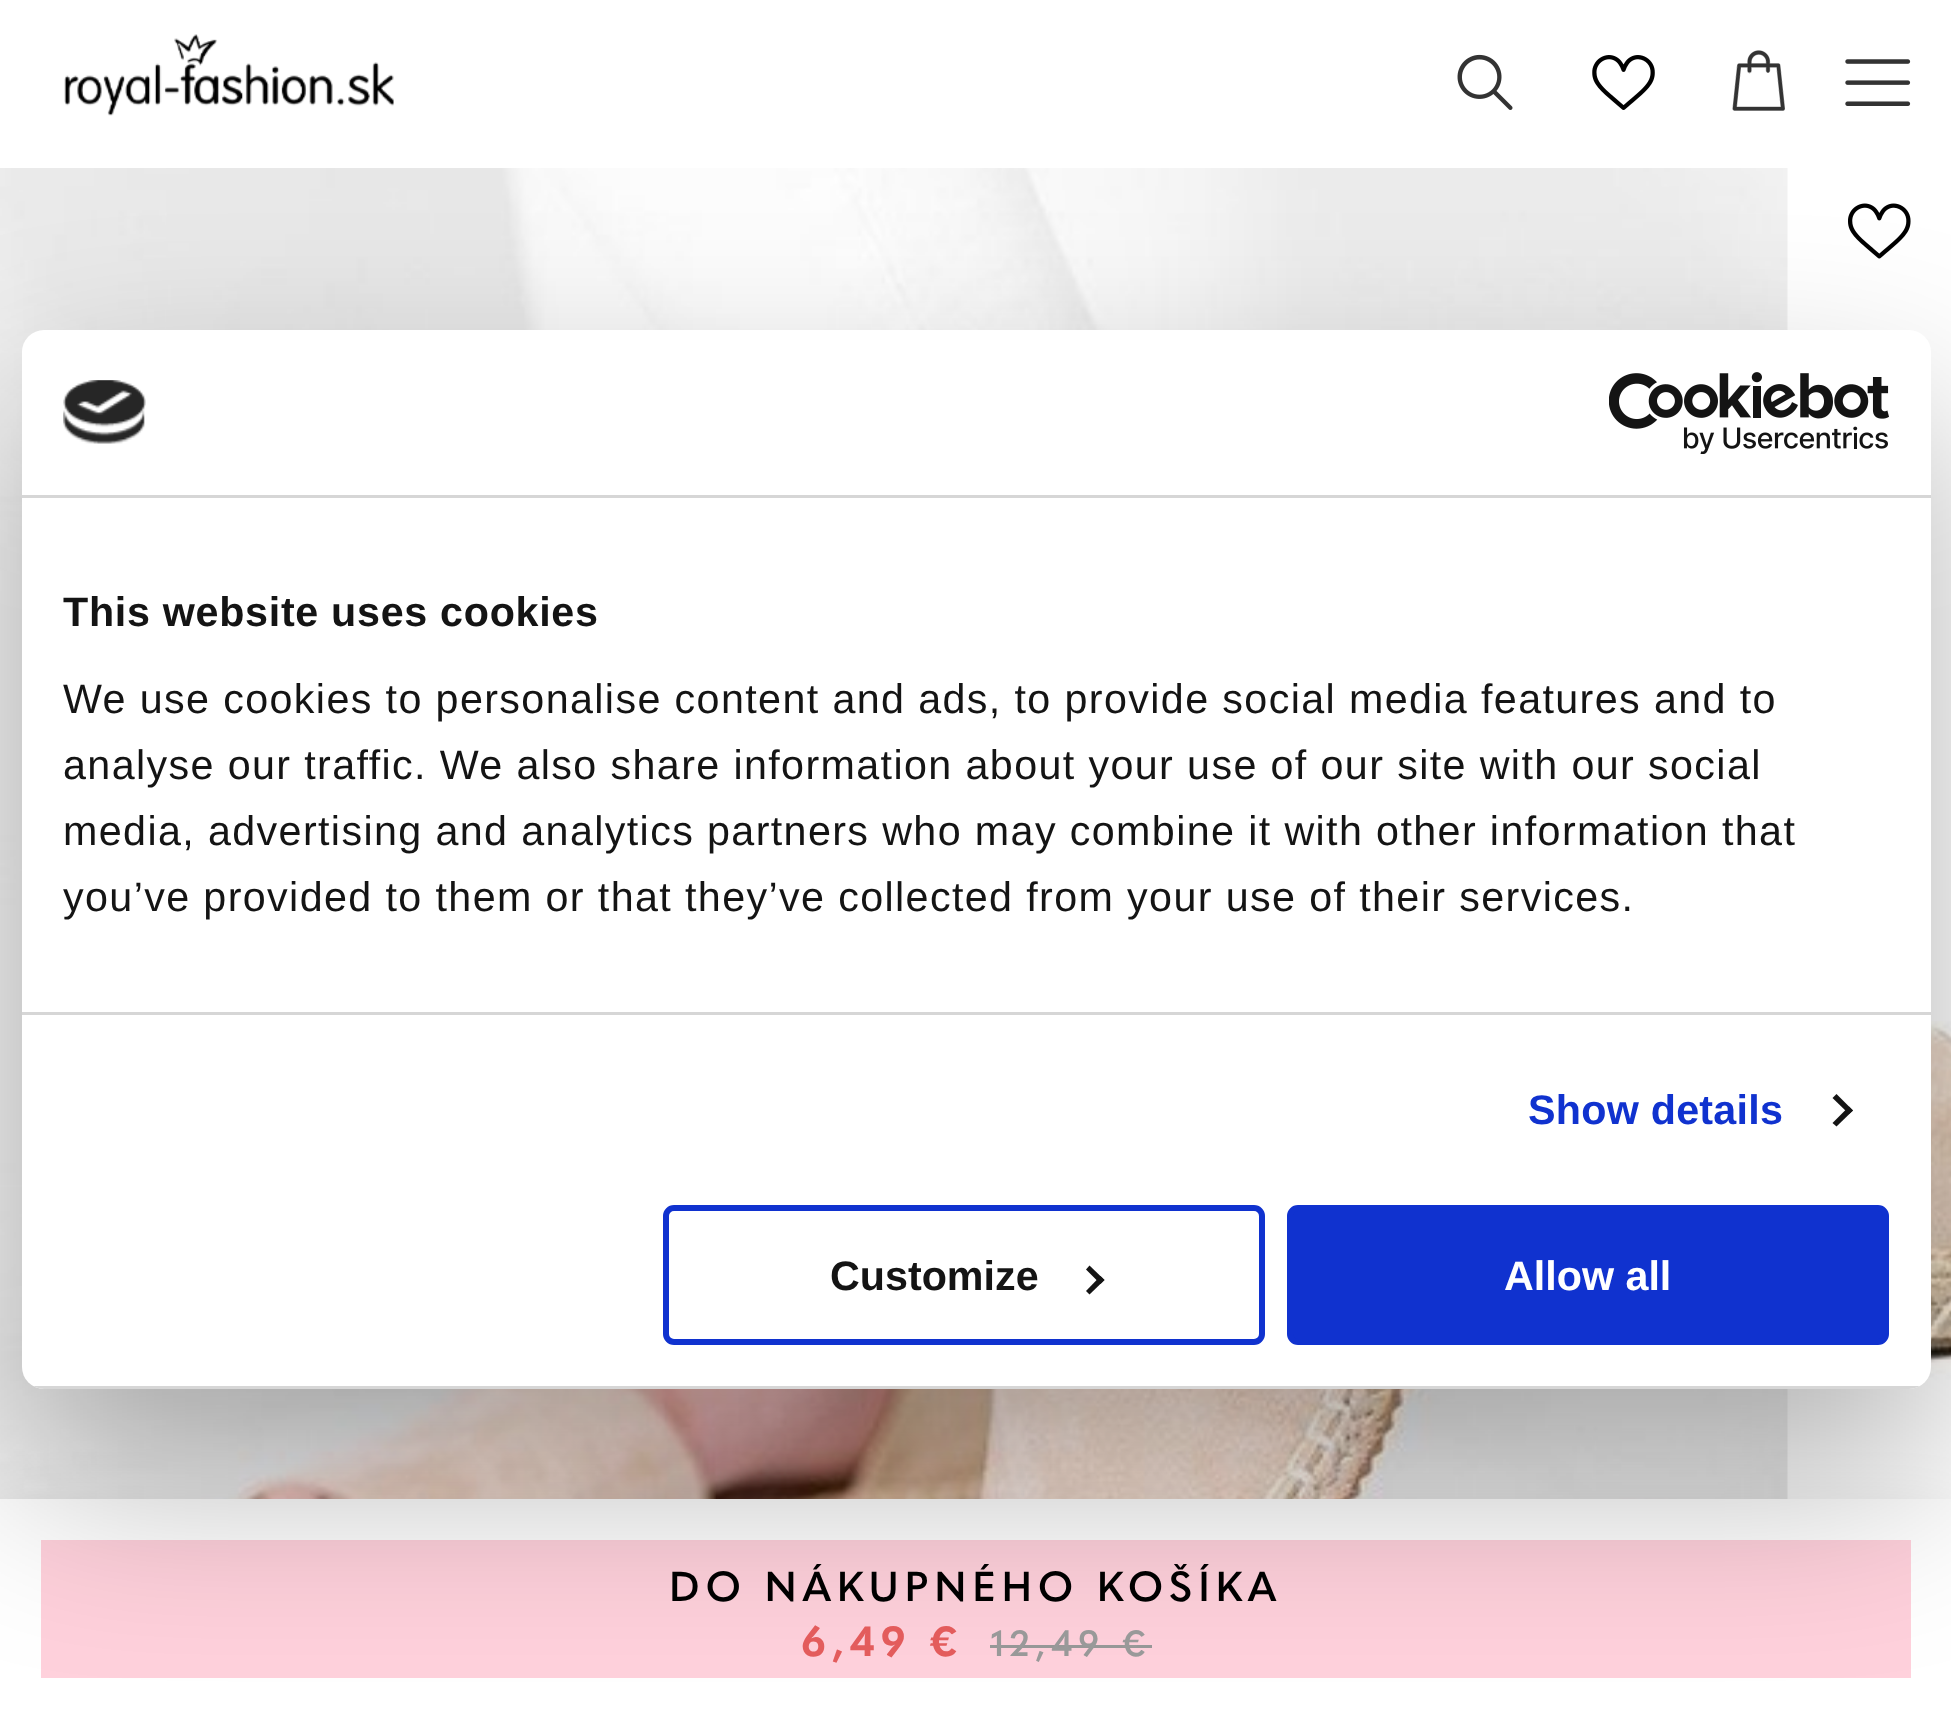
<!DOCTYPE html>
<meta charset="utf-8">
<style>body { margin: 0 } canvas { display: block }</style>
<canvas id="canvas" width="1951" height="1718"></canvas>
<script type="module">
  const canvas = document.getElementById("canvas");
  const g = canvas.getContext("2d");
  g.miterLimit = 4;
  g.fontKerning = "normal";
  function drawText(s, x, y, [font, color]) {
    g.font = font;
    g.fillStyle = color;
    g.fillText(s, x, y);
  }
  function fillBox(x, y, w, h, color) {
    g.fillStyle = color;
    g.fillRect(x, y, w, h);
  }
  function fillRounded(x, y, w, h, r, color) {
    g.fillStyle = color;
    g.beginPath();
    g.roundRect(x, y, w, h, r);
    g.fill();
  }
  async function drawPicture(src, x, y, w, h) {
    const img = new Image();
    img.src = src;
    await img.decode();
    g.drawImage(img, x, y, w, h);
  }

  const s1 = ["bold 41.25px Liberation Sans", "#141414"];
  const s2 = ["41.25px Liberation Sans", "#141414"];
  const s3 = ["bold 41.25px Liberation Sans", "#1032CF"];
  const s4 = ["bold 41.25px Liberation Sans", "#FFFFFF"];
  const s5 = ["600 41.25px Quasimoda", "#000000"];
  const s6 = ["bold 41.25px Quasimoda", "#E35C5C"];
  const s7 = ["600 35.75px Quasimoda", "#999999"];

  fillBox(0, 0, 1951, 1718, "#FFFFFF");
  await drawPicture("pic8.png", 1848, 203, 63, 56);
  await drawPicture("pic9.png", 0, 168, 1788, 1331);
  await drawPicture("pic10.png", 1926, 1021, 25, 359);
  g.fillStyle = "rgba(0, 0, 0, 0.2)";
  g.filter = "blur(38.5px)";
  g.beginPath();
  g.rect(0, 1532, 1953, 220);
  g.fill();
  g.filter = "none";
  fillBox(0, 1499, 1951, 219, "#FFFFFF");
  fillBox(41, 1540, 1870, 138, "#FFD1DC");
  fillBox(990, 1645, 162, 3, "#999999");
  g.fillStyle = "rgba(0, 0, 0, 0.3)";
  g.filter = "blur(93.5px)";
  g.beginPath();
  g.roundRect(22, 418, 1909, 1059, 22);
  g.fill();
  g.filter = "none";
  fillRounded(22, 330, 1909, 1059, 22, "#FFFFFF");
  fillBox(22, 495, 1909, 3, "#D6D6D6");
  await drawPicture("pic1.png", 63, 380, 83, 64);
  await drawPicture("pic2.png", 1609, 372, 280, 82);
  fillBox(22, 1012, 1909, 3, "#D6D6D6");
  g.letterSpacing = "0.7px";
  drawText("This website uses cookies", 63, 626, s1);
  g.letterSpacing = "1.38px";
  drawText("We use cookies to personalise content and ads, to provide social media features and to", 63, 713, s2);
  drawText("analyse our traffic. We also share information about your use of our site with our social", 63, 779, s2);
  drawText("media, advertising and analytics partners who may combine it with other information that", 63, 845, s2);
  drawText("you’ve provided to them or that they’ve collected from your use of their services.", 63, 911, s2);
  g.letterSpacing = "0.25px";
  drawText("Show details", 1528, 1124, s3);
  g.fillStyle = "#141414";
  g.beginPath();
  g.moveTo(1836.5, 1094);
  g.lineTo(1853, 1110.5);
  g.lineTo(1849, 1114);
  g.lineTo(1832.5, 1098);
  g.closePath();
  g.fill();
  g.beginPath();
  g.moveTo(1849, 1106.5);
  g.lineTo(1853, 1110.5);
  g.lineTo(1836.5, 1126.5);
  g.lineTo(1832.5, 1123);
  g.closePath();
  g.fill();
  g.save();
  g.beginPath();
  g.roundRect(22, 330, 1909, 1059, 22);
  g.clip();
  fillBox(33, 1386, 1887, 3, "#D6D6D6");
  g.restore();
  g.beginPath();
  g.roundRect(666, 1208, 596, 134, 8);
  g.strokeStyle = "#1032CF";
  g.lineWidth = 6;
  g.stroke();
  g.letterSpacing = "0px";
  drawText("Customize", 830, 1290, s1);
  g.beginPath();
  g.moveTo(1089.5, 1265.5);
  g.lineTo(1104.5, 1280);
  g.lineTo(1100.5, 1284);
  g.lineTo(1086, 1269.5);
  g.closePath();
  g.fill();
  g.beginPath();
  g.moveTo(1100.5, 1276);
  g.lineTo(1104.5, 1280);
  g.lineTo(1089.5, 1294.5);
  g.lineTo(1086, 1291);
  g.closePath();
  g.fill();
  g.fillStyle = "#1032CF";
  g.beginPath();
  g.roundRect(1290, 1208, 596, 134, 8);
  g.fill();
  g.stroke();
  drawText("Allow all", 1504, 1290, s4);
  await drawPicture("pic3.png", 64, 34, 330, 82);
  await drawPicture("pic4.png", 1457, 54, 56, 56);
  await drawPicture("pic5.png", 1592, 55, 63, 55);
  await drawPicture("pic6.png", 1732, 50, 53, 61);
  await drawPicture("pic7.png", 1845, 59, 66, 47);
  g.letterSpacing = "5.75px";
  drawText("DO NÁKUPNÉHO KOŠÍKA", 669, 1601, s5);
  drawText("6,49 €", 801, 1656, s6);
  drawText("12,49 €", 991, 1656, s7);
</script>
